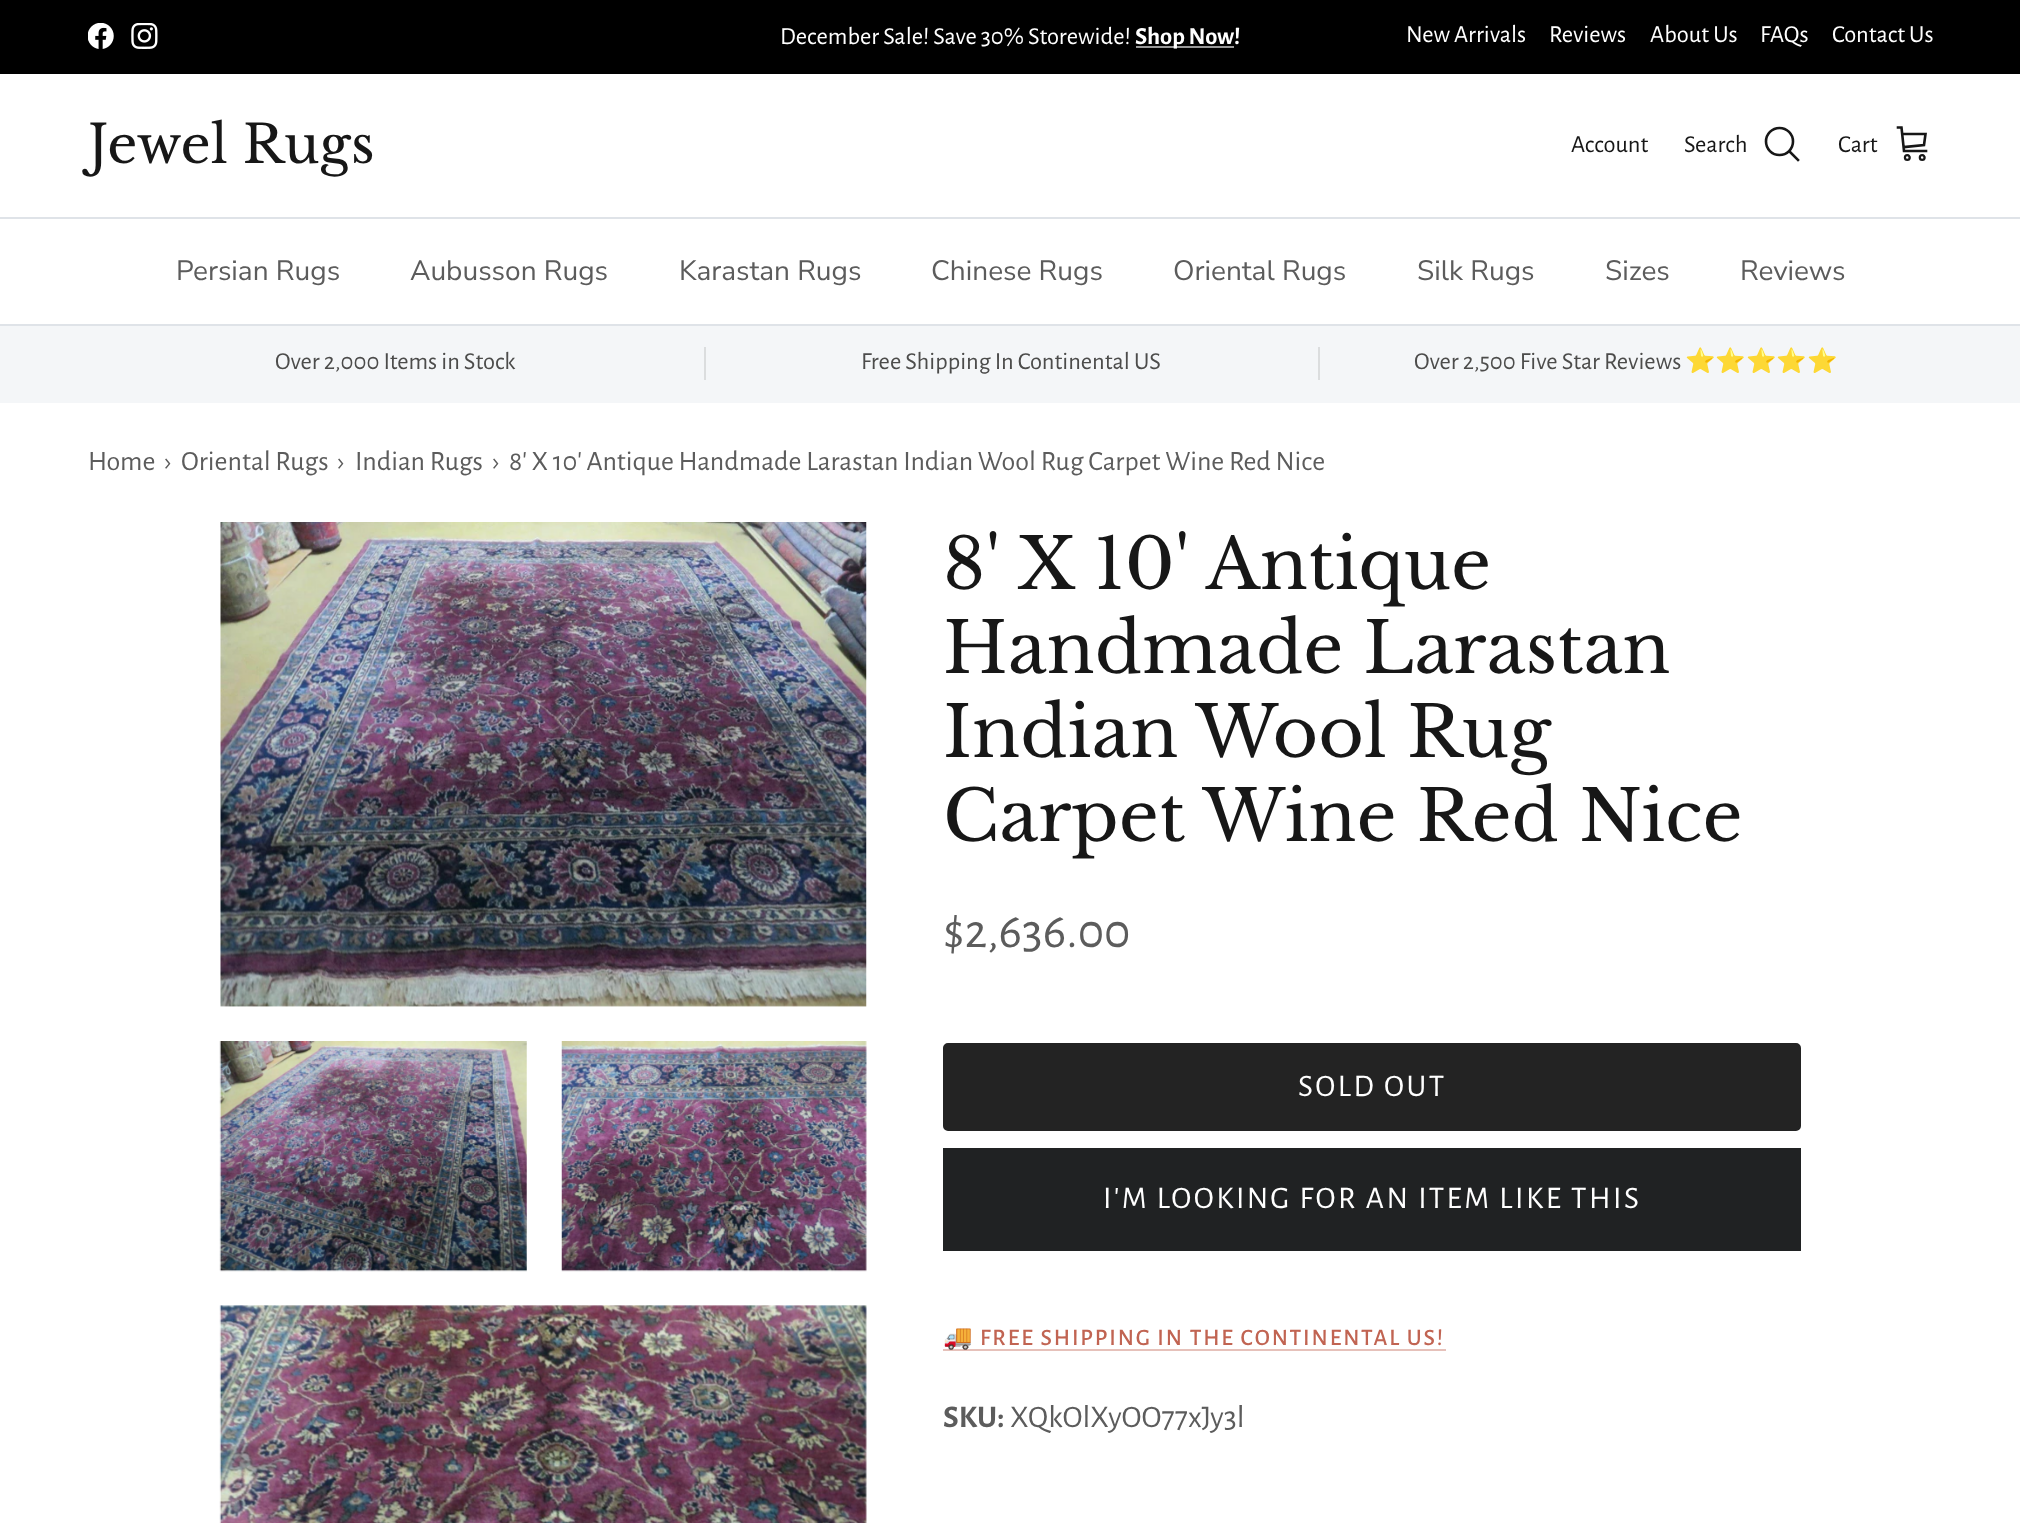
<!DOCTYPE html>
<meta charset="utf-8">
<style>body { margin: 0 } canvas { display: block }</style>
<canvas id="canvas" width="2020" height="1523"></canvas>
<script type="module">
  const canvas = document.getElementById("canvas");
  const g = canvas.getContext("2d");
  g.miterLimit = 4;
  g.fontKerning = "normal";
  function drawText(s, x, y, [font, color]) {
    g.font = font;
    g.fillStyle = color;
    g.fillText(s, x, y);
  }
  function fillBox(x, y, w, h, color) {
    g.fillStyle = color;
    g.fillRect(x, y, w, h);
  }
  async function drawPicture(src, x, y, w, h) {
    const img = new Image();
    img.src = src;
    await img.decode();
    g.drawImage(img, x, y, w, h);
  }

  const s1 = ["24.5px Alegreya Sans", "#FFFFFF"];
  const s2 = ["bold 24.5px Alegreya Sans", "#FFFFFF"];
  const s3 = ["52.5px Libre Baskerville", "#171717"];
  const s4 = ["24.5px Alegreya Sans", "#171717"];
  const s5 = ["28px Nunito Sans", "#5C5C5C"];
  const s6 = ["24.5px Alegreya Sans", "#4C4C4B"];
  const s7 = ["24.5px Noto Color Emoji", "#4C4C4B"];
  const s8 = ["28px Alegreya Sans", "#5C5C5C"];
  const s9 = ["70px Libre Baskerville", "#171717"];
  const s10 = ["50px Alegreya Sans", "#5C5C5C"];
  const s11 = ["31.5px Alegreya Sans", "#FFFFFF"];
  const s12 = ["23.6px Noto Color Emoji", "#C16452"];
  const s13 = ["500 23.6px Alegreya Sans", "#C16452"];
  const s14 = ["bold 31.5px Alegreya Sans", "#5C5C5C"];
  const s15 = ["31.5px Alegreya Sans", "#5C5C5C"];

  fillBox(0, 0, 2020, 1523, "#FFFFFF");
  fillBox(0, 0, 2020, 74, "#000000");
  await drawPicture("pic1.png", 88, 23, 26, 26);
  await drawPicture("pic2.png", 131, 23, 27, 26);
  drawText("December Sale! Save 30% Storewide!", 780, 44, s1);
  fillBox(1136, 46, 98, 2, "#999999");
  drawText("Shop Now!", 1135, 44, s2);
  drawText("New Arrivals", 1406, 42, s1);
  drawText("Reviews", 1549, 42, s1);
  drawText("About Us", 1650, 42, s1);
  drawText("FAQs", 1760, 42, s1);
  drawText("Contact Us", 1832, 42, s1);
  fillBox(0, 217, 2020, 2, "#DFE3E8");
  drawText("Jewel Rugs", 88, 163, s3);
  drawText("Account", 1571, 152, s4);
  drawText("Search", 1684, 152, s4);
  g.beginPath();
  g.arc(1779.5, 141.5, 13.5, 0, Math.PI * 2);
  g.strokeStyle = "#171717";
  g.lineWidth = 2.6;
  g.stroke();
  g.beginPath();
  g.moveTo(1790, 152);
  g.lineTo(1798, 160);
  g.lineCap = "square";
  g.stroke();
  drawText("Cart", 1838, 152, s4);
  g.beginPath();
  g.moveTo(1898, 127.5);
  g.lineTo(1901.5, 127.5);
  g.lineTo(1904, 151);
  g.lineTo(1926, 151);
  g.moveTo(1902.5, 134);
  g.lineTo(1925.5, 134);
  g.lineTo(1924, 145);
  g.lineTo(1905, 147);
  g.stroke();
  g.beginPath();
  g.arc(1907.3, 157.5, 2.4, 0, Math.PI * 2);
  g.lineWidth = 2.2;
  g.stroke();
  g.beginPath();
  g.arc(1922.2, 157.5, 2.4, 0, Math.PI * 2);
  g.stroke();
  fillBox(0, 324, 2020, 2, "#DFE3E8");
  drawText("Persian Rugs", 176, 280, s5);
  drawText("Aubusson Rugs", 410, 280, s5);
  drawText("Karastan Rugs", 679, 280, s5);
  drawText("Chinese Rugs", 931, 280, s5);
  drawText("Oriental Rugs", 1173, 280, s5);
  drawText("Silk Rugs", 1417, 280, s5);
  drawText("Sizes", 1605, 280, s5);
  drawText("Reviews", 1740, 280, s5);
  fillBox(0, 326, 2020, 77, "#F4F6F8");
  drawText("Over 2,000 Items in Stock", 275, 369, s6);
  fillBox(704, 347, 2, 33, "#DBDDDE");
  drawText("Free Shipping In Continental US", 861, 369, s6);
  fillBox(1318, 347, 2, 33, "#DBDDDE");
  drawText("Over 2,500 Five Star Reviews", 1414, 369, s6);
  drawText("⭐⭐⭐⭐⭐", 1685, 369, s7);
  drawText("Home", 88, 470, s8);
  drawText("›", 165, 470, s8);
  drawText("Oriental Rugs", 181, 470, s8);
  drawText("›", 338, 470, s8);
  drawText("Indian Rugs", 355, 470, s8);
  drawText("›", 493, 470, s8);
  drawText("8' X 10' Antique Handmade Larastan Indian Wool Rug Carpet Wine Red Nice", 509, 470, s8);
  await drawPicture("pic3.png", 220, 522, 647, 485);
  await drawPicture("pic4.png", 219, 1041, 308, 231);
  await drawPicture("pic5.png", 561, 1041, 306, 231);
  await drawPicture("pic6.png", 219, 1305, 648, 218);
  drawText("8' X 10' Antique", 943, 589, s9);
  drawText("Handmade Larastan", 943, 673, s9);
  drawText("Indian Wool Rug", 943, 757, s9);
  drawText("Carpet Wine Red Nice", 943, 841, s9);
  drawText("$2,636.00", 943, 947, s10);
  g.fillStyle = "#232323";
  g.beginPath();
  g.roundRect(944, 1044, 856, 86, 4);
  g.fill();
  g.strokeStyle = "#232323";
  g.lineWidth = 2;
  g.stroke();
  g.letterSpacing = "2.5px";
  drawText("SOLD OUT", 1298, 1096, s11);
  fillBox(943, 1148, 858, 103, "#202223");
  drawText("I'M LOOKING FOR AN ITEM LIKE THIS", 1103, 1208, s11);
  fillBox(943, 1349, 503, 2, "#E6C1BA");
  g.letterSpacing = "1.9px";
  drawText("🚚", 943, 1345, s12);
  drawText("FREE SHIPPING IN THE CONTINENTAL US!", 980, 1345, s13);
  g.letterSpacing = "0px";
  drawText("SKU:", 943, 1427, s14);
  drawText("XQkOlXyOO77xJy3l", 1010, 1427, s15);
</script>
